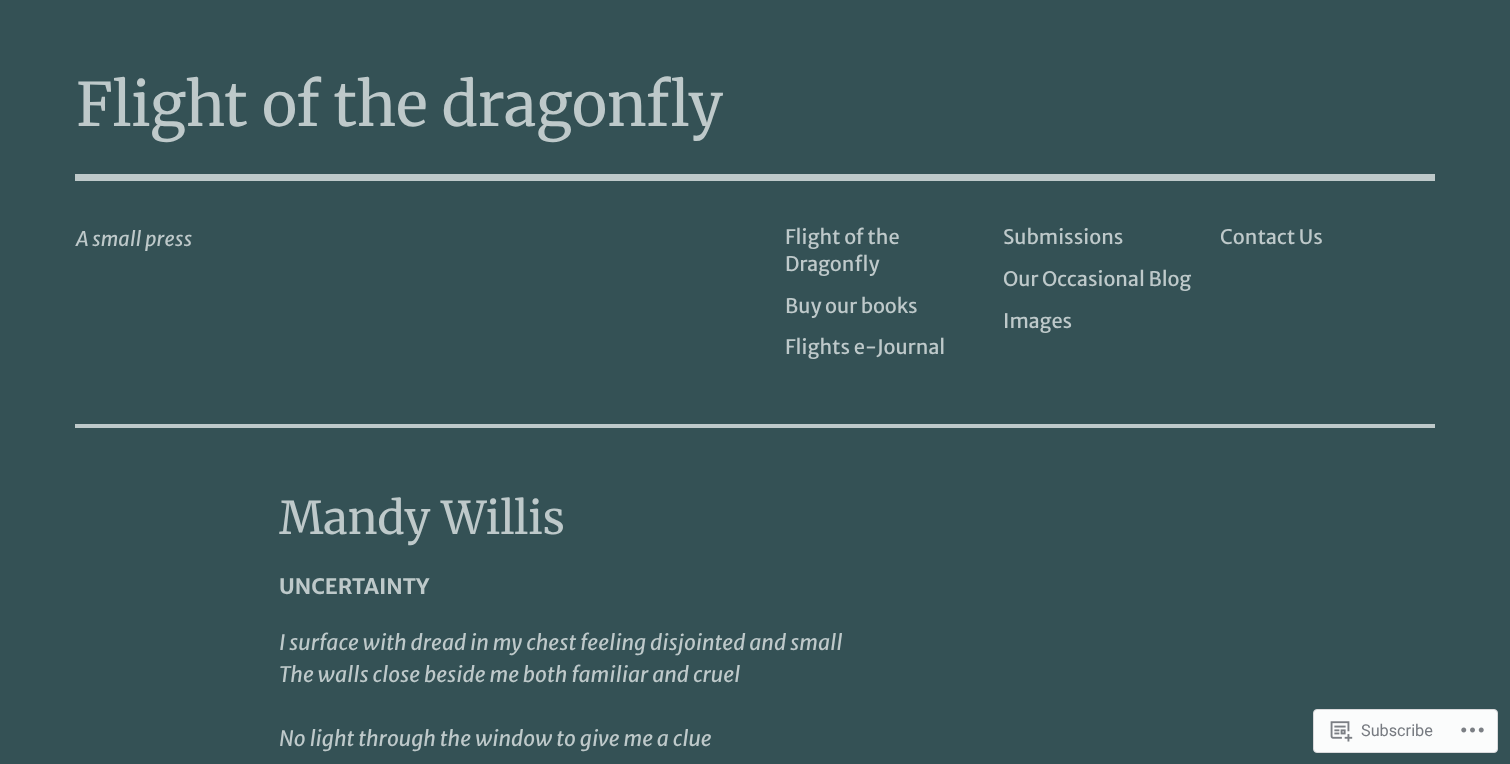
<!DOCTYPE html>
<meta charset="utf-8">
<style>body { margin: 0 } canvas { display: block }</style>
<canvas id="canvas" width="1510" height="764"></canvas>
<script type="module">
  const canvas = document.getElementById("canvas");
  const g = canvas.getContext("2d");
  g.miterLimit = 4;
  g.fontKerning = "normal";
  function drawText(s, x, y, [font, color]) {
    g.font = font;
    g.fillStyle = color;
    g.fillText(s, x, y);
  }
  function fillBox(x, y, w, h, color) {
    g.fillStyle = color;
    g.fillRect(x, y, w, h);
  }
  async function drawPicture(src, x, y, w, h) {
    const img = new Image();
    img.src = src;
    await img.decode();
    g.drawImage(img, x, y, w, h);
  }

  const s1 = ["300 60px Merriweather", "#BEC9CA"];
  const s2 = ["italic 20px Merriweather Sans", "#BEC9CA"];
  const s3 = ["20px Merriweather Sans", "#BEC9CA"];
  const s4 = ["300 45px Merriweather", "#BEC9CA"];
  const s5 = ["bold 21.25px Merriweather Sans", "#BEC9CA"];
  const s6 = ["italic 21.25px Merriweather Sans", "#BEC9CA"];
  const s7 = ["16.25px Roboto", "#777B81"];

  fillBox(0, 0, 1510, 764, "#345155");
  fillBox(75, 174, 1360, 7, "#BEC9CA");
  drawText("Flight of the dragonfly", 76, 126, s1);
  drawText("A small press", 76, 246, s2);
  drawText("Flight of the", 785, 244, s3);
  drawText("Dragonfly", 785, 271, s3);
  drawText("Buy our books", 785, 313, s3);
  drawText("Flights e-Journal", 785, 354, s3);
  drawText("Submissions", 1003, 244, s3);
  drawText("Our Occasional Blog", 1003, 286, s3);
  drawText("Images", 1003, 328, s3);
  drawText("Contact Us", 1220, 244, s3);
  fillBox(75, 424, 1360, 4, "#BEC9CA");
  drawText("Mandy Willis", 279, 534, s4);
  drawText("UNCERTAINTY", 279, 594, s5);
  drawText("I surface with dread in my chest feeling disjointed and small", 279, 650, s6);
  drawText("The walls close beside me both familiar and cruel", 279, 682, s6);
  drawText("No light through the window to give me a clue", 279, 746, s6);
  g.fillStyle = "#FBFCFC";
  g.beginPath();
  g.roundRect(1313.5, 709.5, 184, 43, 3.5);
  g.fill();
  g.strokeStyle = "#D9D9DB";
  g.stroke();
  await drawPicture("pic1.png", 1330, 721, 23, 21);
  drawText("Subscribe", 1361, 736, s7);
  await drawPicture("pic2.png", 1461, 727, 23, 6);
</script>
